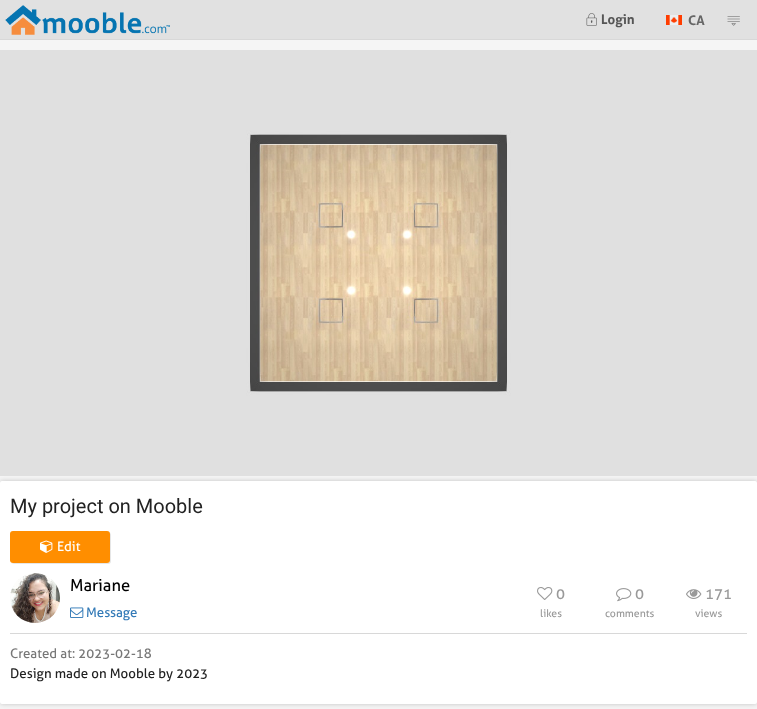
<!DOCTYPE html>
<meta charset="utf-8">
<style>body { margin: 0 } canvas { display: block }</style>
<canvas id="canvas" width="757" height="709"></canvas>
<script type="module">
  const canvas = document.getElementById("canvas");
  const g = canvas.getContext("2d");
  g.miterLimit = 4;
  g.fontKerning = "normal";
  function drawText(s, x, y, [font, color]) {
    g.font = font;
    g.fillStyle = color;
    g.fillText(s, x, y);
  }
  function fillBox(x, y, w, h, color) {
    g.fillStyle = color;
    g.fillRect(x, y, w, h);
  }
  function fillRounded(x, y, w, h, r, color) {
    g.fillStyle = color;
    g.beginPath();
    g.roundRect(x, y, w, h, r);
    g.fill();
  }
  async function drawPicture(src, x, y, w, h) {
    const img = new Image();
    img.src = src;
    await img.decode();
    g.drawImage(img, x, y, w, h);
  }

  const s1 = ["bold 13.3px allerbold", "#555555"];
  const s2 = ["bold 13.3px allerbold", "#666666"];
  const s3 = ["20px Roboto", "#222222"];
  const s4 = ["13.3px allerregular", "#FFFFFF"];
  const s5 = ["16.5px allerregular", "#000000"];
  const s6 = ["13.3px allerregular", "#337AB7"];
  const s7 = ["15px allerregular", "#999999"];
  const s8 = ["10.5px allerregular", "#999999"];
  const s9 = ["13.3px allerregular", "#777777"];
  const s10 = ["13.3px allerregular", "#222222"];

  fillBox(0, 0, 757, 709, "#F5F5F5");
  fillBox(0, 0, 757, 39, "#E1E1E1");
  fillBox(0, 39, 757, 1, "#D8D8D8");
  await drawPicture("pic1.png", 5, 5, 165, 30);
  await drawPicture("pic2.png", 586, 13, 11, 13);
  drawText("Login", 601, 24, s1);
  await drawPicture("pic3.png", 666, 15, 16, 10);
  drawText("CA", 688, 25, s2);
  await drawPicture("pic4.png", 727, 16, 13, 10);
  g.fillStyle = "rgba(0, 0, 0, 0.2)";
  g.filter = "blur(2.5px)";
  g.beginPath();
  g.roundRect(0, 481, 757, 223, 2);
  g.fill();
  g.filter = "none";
  await drawPicture("pic5.png", 0, 50, 757, 426);
  fillRounded(0, 481, 757, 223, 2, "#FFFFFF");
  drawText("My project on Mooble", 10, 513, s3);
  g.fillStyle = "#E6E6E6";
  g.beginPath();
  g.moveTo(11, 563);
  g.bezierCurveTo(12, 563, 13, 564, 14, 564);
  g.lineTo(108, 564);
  g.bezierCurveTo(110, 564, 111, 563, 111, 561);
  g.lineTo(111, 535);
  g.bezierCurveTo(111, 534, 110, 533, 110, 532);
  g.lineTo(110, 534);
  g.lineTo(110, 560);
  g.bezierCurveTo(110, 562, 109, 563, 107, 563);
  g.lineTo(13, 563);
  g.closePath();
  g.fill();
  fillRounded(10, 531, 100, 32, 3, "#FF8E00");
  await drawPicture("pic6.png", 40, 540, 13, 13);
  drawText("Edit", 57, 551, s4);
  await drawPicture("pic7.png", 10, 573, 50, 50);
  drawText("Mariane", 70, 591, s5);
  await drawPicture("pic8.png", 70, 607, 14, 11);
  drawText("Message", 86, 617, s6);
  await drawPicture("pic9.png", 537, 587, 16, 13);
  drawText("0", 556, 599, s7);
  drawText("likes", 540, 617, s8);
  await drawPicture("pic10.png", 616, 588, 16, 14);
  drawText("0", 635, 599, s7);
  drawText("comments", 605, 617, s8);
  await drawPicture("pic11.png", 686, 589, 16, 10);
  drawText("171", 705, 599, s7);
  drawText("views", 695, 617, s8);
  fillBox(10, 633, 737, 1, "#D8D8D8");
  drawText("Created at: 2023-02-18", 10, 658, s9);
  drawText("Design made on Mooble by 2023", 10, 678, s10);
</script>
